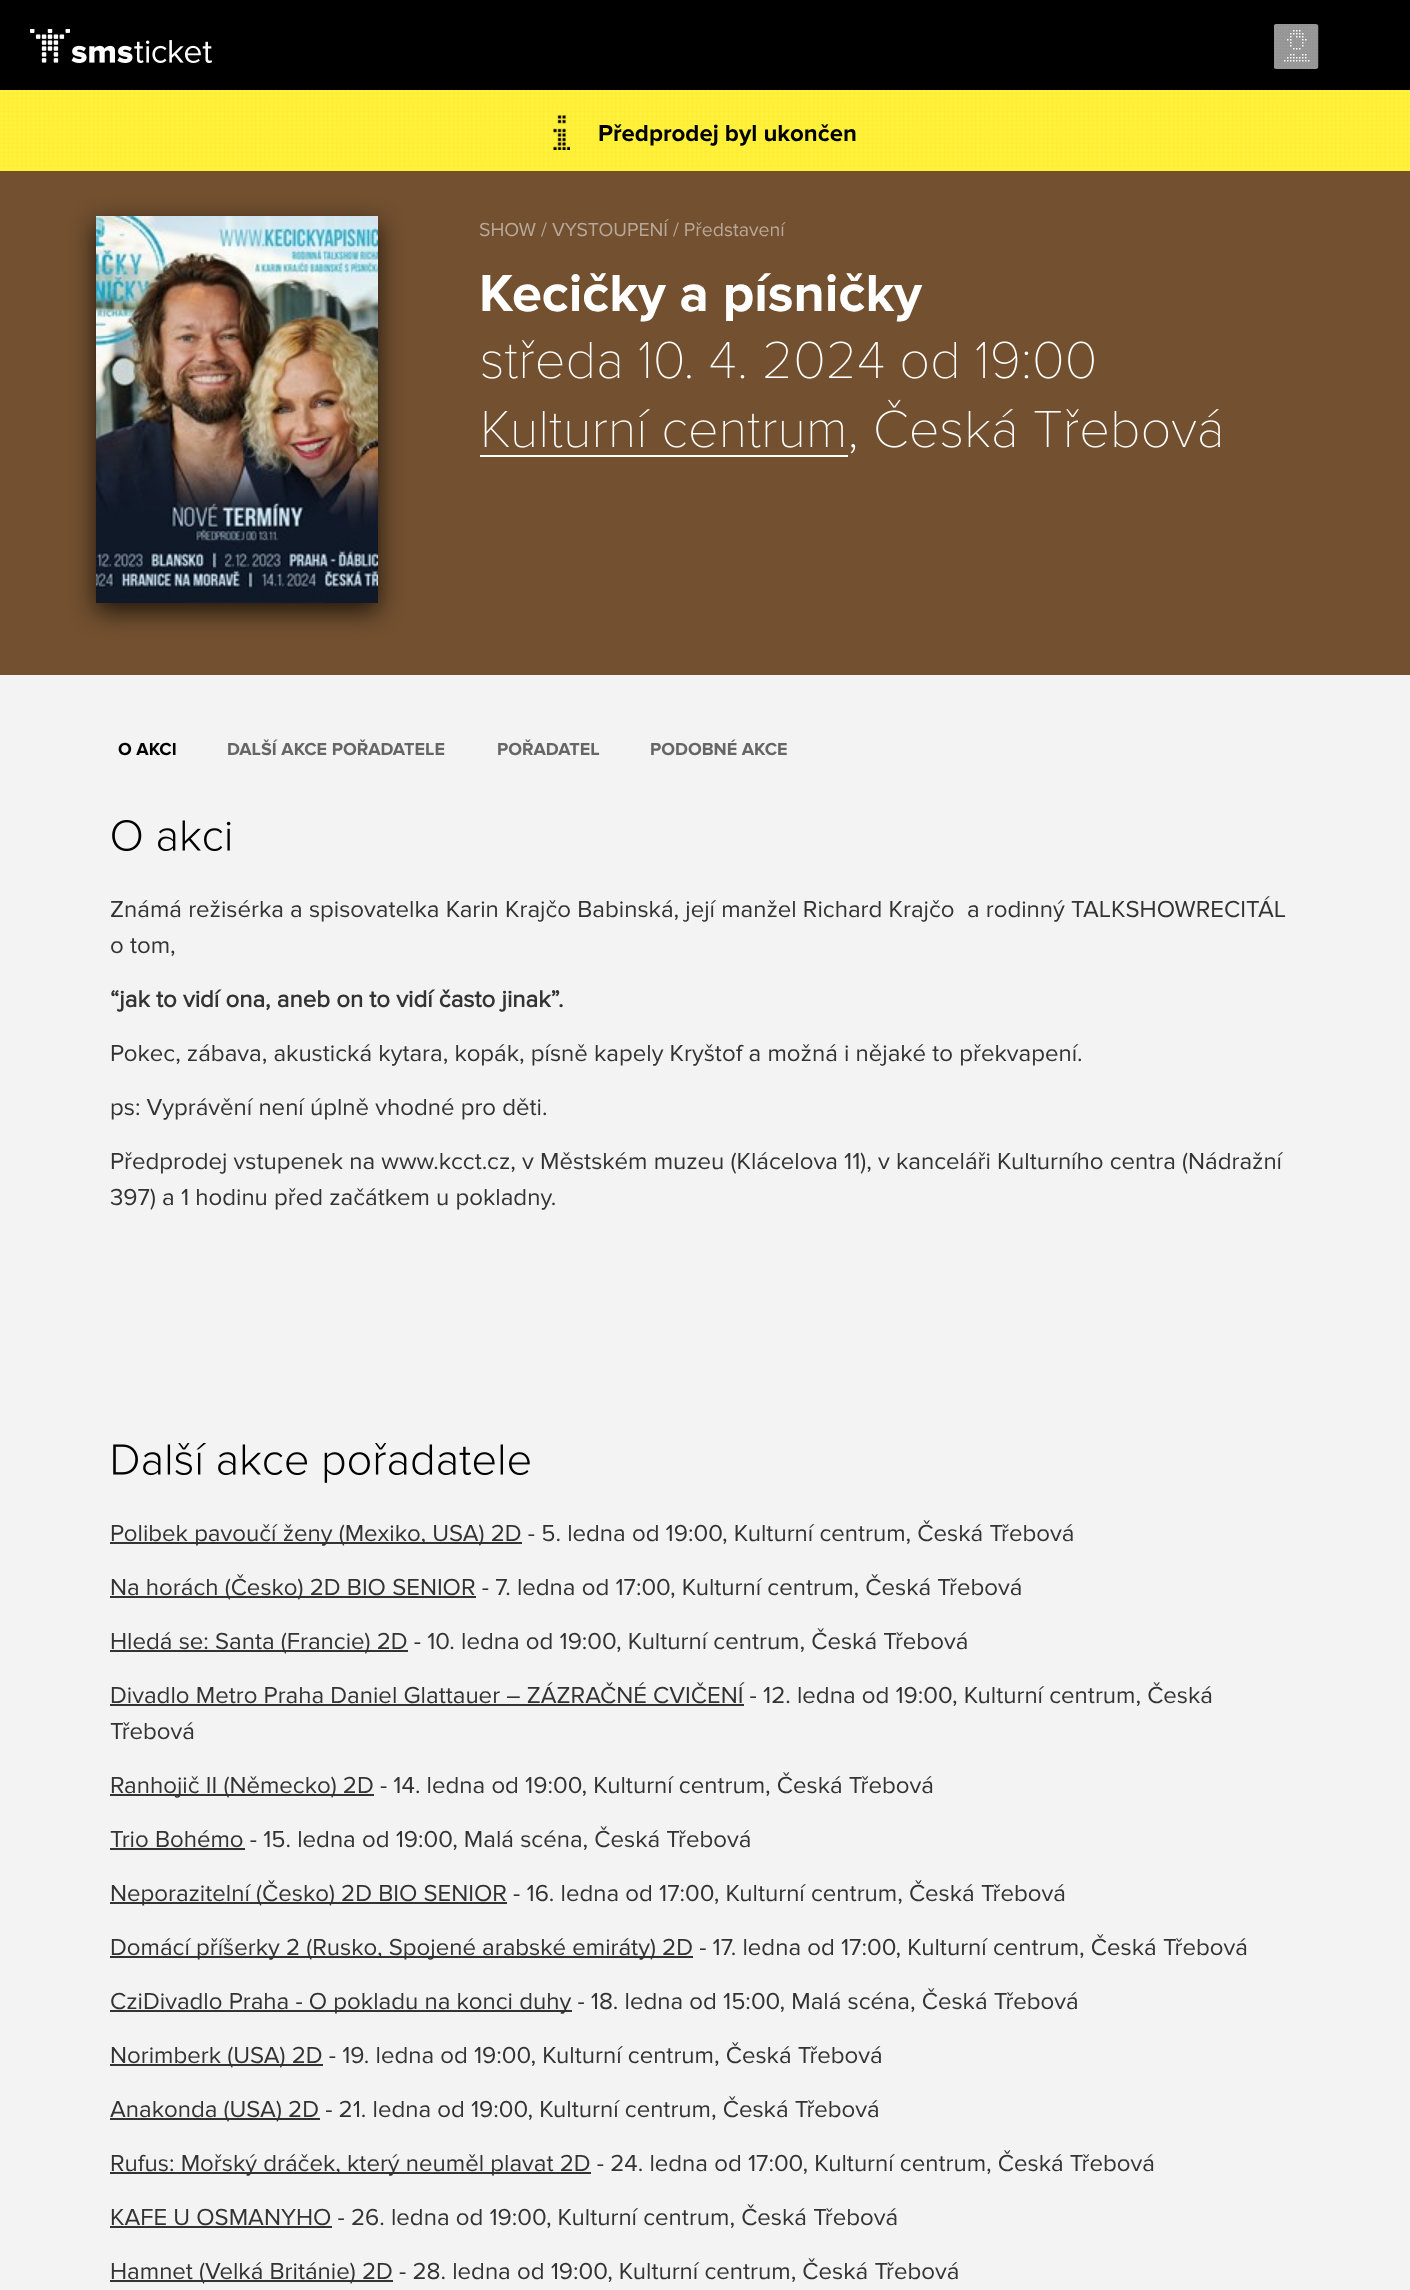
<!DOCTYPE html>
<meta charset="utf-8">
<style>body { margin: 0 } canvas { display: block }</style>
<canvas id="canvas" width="1410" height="2290"></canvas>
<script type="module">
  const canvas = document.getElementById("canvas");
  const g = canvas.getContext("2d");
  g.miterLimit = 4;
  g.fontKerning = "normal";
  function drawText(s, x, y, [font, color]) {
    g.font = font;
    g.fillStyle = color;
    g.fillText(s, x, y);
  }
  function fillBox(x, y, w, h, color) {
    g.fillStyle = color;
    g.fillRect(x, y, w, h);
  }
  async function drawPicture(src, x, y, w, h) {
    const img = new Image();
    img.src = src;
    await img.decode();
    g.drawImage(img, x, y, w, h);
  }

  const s1 = ["bold 24px Proxima Nova", "#000000"];
  const s2 = ["19.5px Proxima Nova", "#B9A898"];
  const s3 = ["bold 54px Proxima Nova", "#FFFFFF"];
  const s4 = ["bold 18px Proxima Nova", "#000000"];
  const s5 = ["bold 18px Proxima Nova", "#666666"];
  const s6 = ["24px Proxima Nova", "#333333"];
  const s7 = ["bold 24px 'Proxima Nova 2'", "#333333"];

  fillBox(0, 0, 1410, 2290, "#F3F3F3");
  fillBox(0, 0, 1410, 90, "#000000");
  await drawPicture("pic1.png", 30, 29, 182, 34);
  await drawPicture("pic2.png", 1274, 24, 45, 45);
  await drawPicture("pic3.png", 0, 90, 1410, 81);
  await drawPicture("pic4.png", 553, 115, 17, 35);
  drawText("Předprodej byl ukončen", 598, 141, s1);
  fillBox(0, 171, 1410, 504, "#725030");
  g.fillStyle = "rgba(0, 0, 0, 0.74)";
  g.filter = "blur(12px)";
  g.beginPath();
  g.rect(96, 224, 282, 387);
  g.fill();
  g.filter = "none";
  await drawPicture("pic5.png", 96, 216, 282, 387);
  drawText("SHOW / VYSTOUPENÍ / Představení", 479, 236, s2);
  drawText("Kecičky a písničky", 479, 311, s3);
  await drawPicture("pic6.png", 482, 340, 612, 39);
  await drawPicture("pic7.png", 484, 409, 359, 39);
  await drawPicture("pic8.png", 850, 399, 370, 55);
  fillBox(480, 455, 368, 2, "#FFFFFF");
  drawText("O AKCI", 118, 755, s4);
  drawText("DALŠÍ AKCE POŘADATELE", 227, 755, s5);
  drawText("POŘADATEL", 497, 755, s5);
  drawText("PODOBNÉ AKCE", 650, 755, s5);
  await drawPicture("pic9.png", 112, 820, 119, 32);
  drawText("Známá režisérka a spisovatelka Karin Krajčo Babinská, její manžel Richard Krajčo  a rodinný TALKSHOWRECITÁL", 110, 917, s6);
  drawText("o tom,", 110, 953, s6);
  drawText("“jak to vidí ona, aneb on to vidí často jinak”.", 110, 1007, s7);
  drawText("Pokec, zábava, akustická kytara, kopák, písně kapely Kryštof a možná i nějaké to překvapení.", 110, 1061, s6);
  drawText("ps: Vyprávění není úplně vhodné pro děti.", 110, 1115, s6);
  drawText("Předprodej vstupenek na www.kcct.cz, v Městském muzeu (Klácelova 11), v kanceláři Kulturního centra (Nádražní", 110, 1169, s6);
  drawText("397) a 1 hodinu před začátkem u pokladny.", 110, 1205, s6);
  await drawPicture("pic10.png", 113, 1443, 417, 40);
  fillBox(110, 1542, 412, 2, "#333333");
  drawText("Polibek pavoučí ženy (Mexiko, USA) 2D - 5. ledna od 19:00, Kulturní centrum, Česká Třebová", 110, 1541, s6);
  fillBox(110, 1596, 366, 2, "#333333");
  drawText("Na horách (Česko) 2D BIO SENIOR - 7. ledna od 17:00, Kulturní centrum, Česká Třebová", 110, 1595, s6);
  fillBox(110, 1650, 298, 2, "#333333");
  drawText("Hledá se: Santa (Francie) 2D - 10. ledna od 19:00, Kulturní centrum, Česká Třebová", 110, 1649, s6);
  fillBox(110, 1704, 634, 2, "#333333");
  drawText("Divadlo Metro Praha Daniel Glattauer – ZÁZRAČNÉ CVIČENÍ - 12. ledna od 19:00, Kulturní centrum, Česká", 110, 1703, s6);
  drawText("Třebová", 110, 1739, s6);
  fillBox(110, 1794, 264, 2, "#333333");
  drawText("Ranhojič II (Německo) 2D - 14. ledna od 19:00, Kulturní centrum, Česká Třebová", 110, 1793, s6);
  fillBox(110, 1848, 135, 2, "#333333");
  drawText("Trio Bohémo - 15. ledna od 19:00, Malá scéna, Česká Třebová", 110, 1847, s6);
  fillBox(110, 1902, 397, 2, "#333333");
  drawText("Neporazitelní (Česko) 2D BIO SENIOR - 16. ledna od 17:00, Kulturní centrum, Česká Třebová", 110, 1901, s6);
  fillBox(110, 1956, 583, 2, "#333333");
  drawText("Domácí příšerky 2 (Rusko, Spojené arabské emiráty) 2D - 17. ledna od 17:00, Kulturní centrum, Česká Třebová", 110, 1955, s6);
  fillBox(110, 2010, 462, 2, "#333333");
  drawText("CziDivadlo Praha - O pokladu na konci duhy - 18. ledna od 15:00, Malá scéna, Česká Třebová", 110, 2009, s6);
  fillBox(110, 2064, 213, 2, "#333333");
  drawText("Norimberk (USA) 2D - 19. ledna od 19:00, Kulturní centrum, Česká Třebová", 110, 2063, s6);
  fillBox(110, 2118, 210, 2, "#333333");
  drawText("Anakonda (USA) 2D - 21. ledna od 19:00, Kulturní centrum, Česká Třebová", 110, 2117, s6);
  fillBox(110, 2172, 481, 2, "#333333");
  drawText("Rufus: Mořský dráček, který neuměl plavat 2D - 24. ledna od 17:00, Kulturní centrum, Česká Třebová", 110, 2171, s6);
  fillBox(110, 2226, 222, 2, "#333333");
  drawText("KAFE U OSMANYHO - 26. ledna od 19:00, Kulturní centrum, Česká Třebová", 110, 2225, s6);
  fillBox(110, 2280, 283, 2, "#333333");
  drawText("Hamnet (Velká Británie) 2D - 28. ledna od 19:00, Kulturní centrum, Česká Třebová", 110, 2279, s6);
</script>
